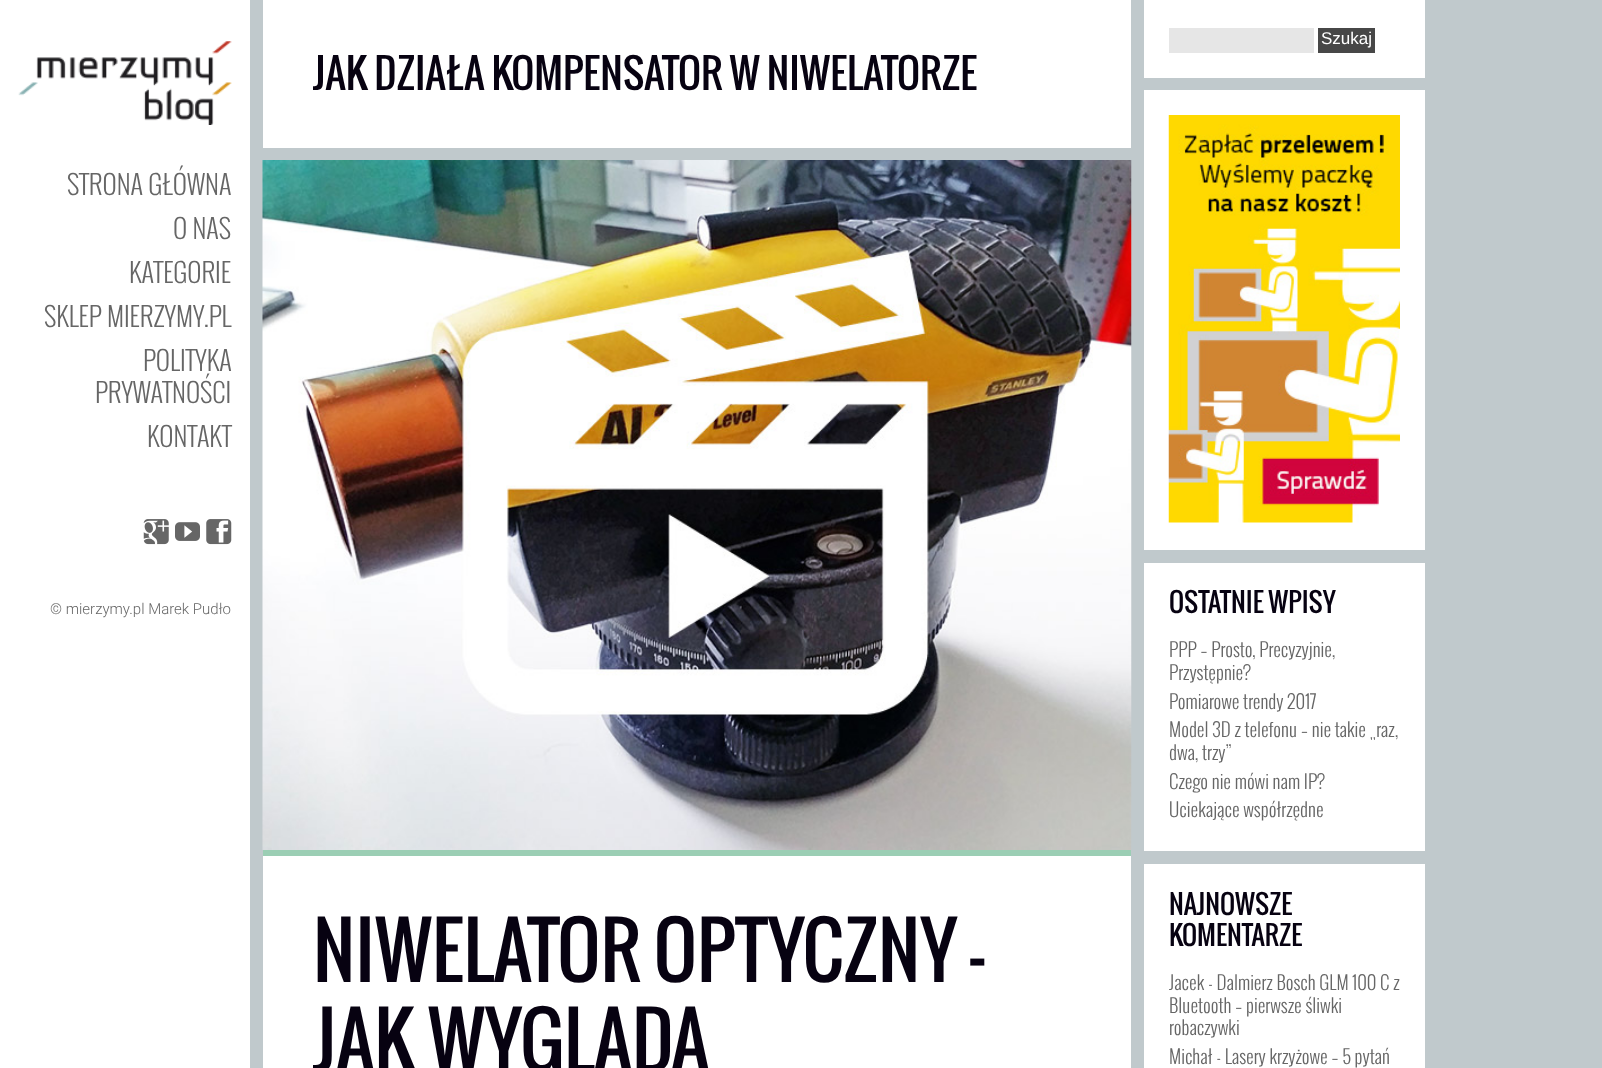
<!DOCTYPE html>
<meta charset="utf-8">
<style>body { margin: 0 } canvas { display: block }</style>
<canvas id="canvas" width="1602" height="1068"></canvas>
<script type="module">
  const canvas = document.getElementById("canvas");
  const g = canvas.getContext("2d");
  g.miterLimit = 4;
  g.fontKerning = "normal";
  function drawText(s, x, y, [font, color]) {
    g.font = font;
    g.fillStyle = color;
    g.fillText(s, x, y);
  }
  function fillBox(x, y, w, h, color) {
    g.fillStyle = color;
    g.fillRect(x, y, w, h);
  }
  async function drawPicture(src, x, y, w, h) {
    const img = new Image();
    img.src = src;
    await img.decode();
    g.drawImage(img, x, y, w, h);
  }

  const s1 = ["40px Oswald", "#070211"];
  const s2 = ["75px Oswald", "#070211"];
  const s3 = ["17px Liberation Sans", "#FFFFFF"];
  const s4 = ["26.25px Oswald", "#070211"];
  const s5 = ["300 18.75px Oswald", "#666666"];
  const s6 = ["300 26.25px Oswald", "#666666"];
  const s7 = ["300 15px Roboto", "#666666"];

  fillBox(0, 0, 1602, 1068, "#C0C9CC");
  fillBox(0, 0, 250, 1068, "#FFFFFF");
  fillBox(263, 0, 868, 148, "#FFFFFF");
  drawText("JAK DZIAŁA KOMPENSATOR W NIWELATORZE", 313, 90, s1);
  await drawPicture("pic1.png", 262, 160, 870, 690);
  fillBox(263, 850, 868, 6, "#9BCEB4");
  fillBox(263, 856, 868, 212, "#FFFFFF");
  drawText("NIWELATOR OPTYCZNY –", 313, 982, s2);
  drawText("JAK WYGLĄDA", 313, 1072, s2);
  fillBox(1144, 0, 281, 78, "#FFFFFF");
  fillBox(1169, 28, 145, 25, "#E6E6E6");
  fillBox(1318, 28, 57, 25, "#474747");
  drawText("Szukaj", 1321, 44, s3);
  fillBox(1144, 90, 281, 460, "#FFFFFF");
  await drawPicture("pic2.png", 1168, 115, 232, 408);
  fillBox(1144, 563, 281, 288, "#FFFFFF");
  drawText("OSTATNIE WPISY", 1169, 613, s4);
  drawText("PPP – Prosto, Precyzyjnie,", 1169, 657, s5);
  drawText("Przystępnie?", 1169, 680, s5);
  drawText("Pomiarowe trendy 2017", 1169, 709, s5);
  drawText("Model 3D z telefonu – nie takie „raz,", 1169, 737, s5);
  drawText("dwa, trzy”", 1169, 760, s5);
  drawText("Czego nie mówi nam IP?", 1169, 789, s5);
  drawText("Uciekające współrzędne", 1169, 817, s5);
  fillBox(1144, 864, 281, 204, "#FFFFFF");
  drawText("NAJNOWSZE", 1169, 915, s4);
  drawText("KOMENTARZE", 1169, 946, s4);
  drawText("Jacek - Dalmierz Bosch GLM 100 C z", 1169, 990, s5);
  drawText("Bluetooth – pierwsze śliwki", 1169, 1013, s5);
  drawText("robaczywki", 1169, 1035, s5);
  drawText("Michał - Lasery krzyżowe – 5 pytań", 1169, 1064, s5);
  await drawPicture("pic3.png", 18, 41, 214, 84);
  drawText("STRONA GŁÓWNA", 67, 195, s6);
  drawText("O NAS", 173, 239, s6);
  drawText("KATEGORIE", 129, 283, s6);
  drawText("SKLEP MIERZYMY.PL", 44, 327, s6);
  drawText("POLITYKA", 143, 371, s6);
  drawText("PRYWATNOŚCI", 95, 403, s6);
  drawText("KONTAKT", 147, 447, s6);
  await drawPicture("pic4.png", 143, 519, 26, 26);
  await drawPicture("pic5.png", 175, 522, 25, 19);
  await drawPicture("pic6.png", 206, 519, 26, 26);
  drawText("© mierzymy.pl Marek Pudło", 50, 614, s7);
</script>
